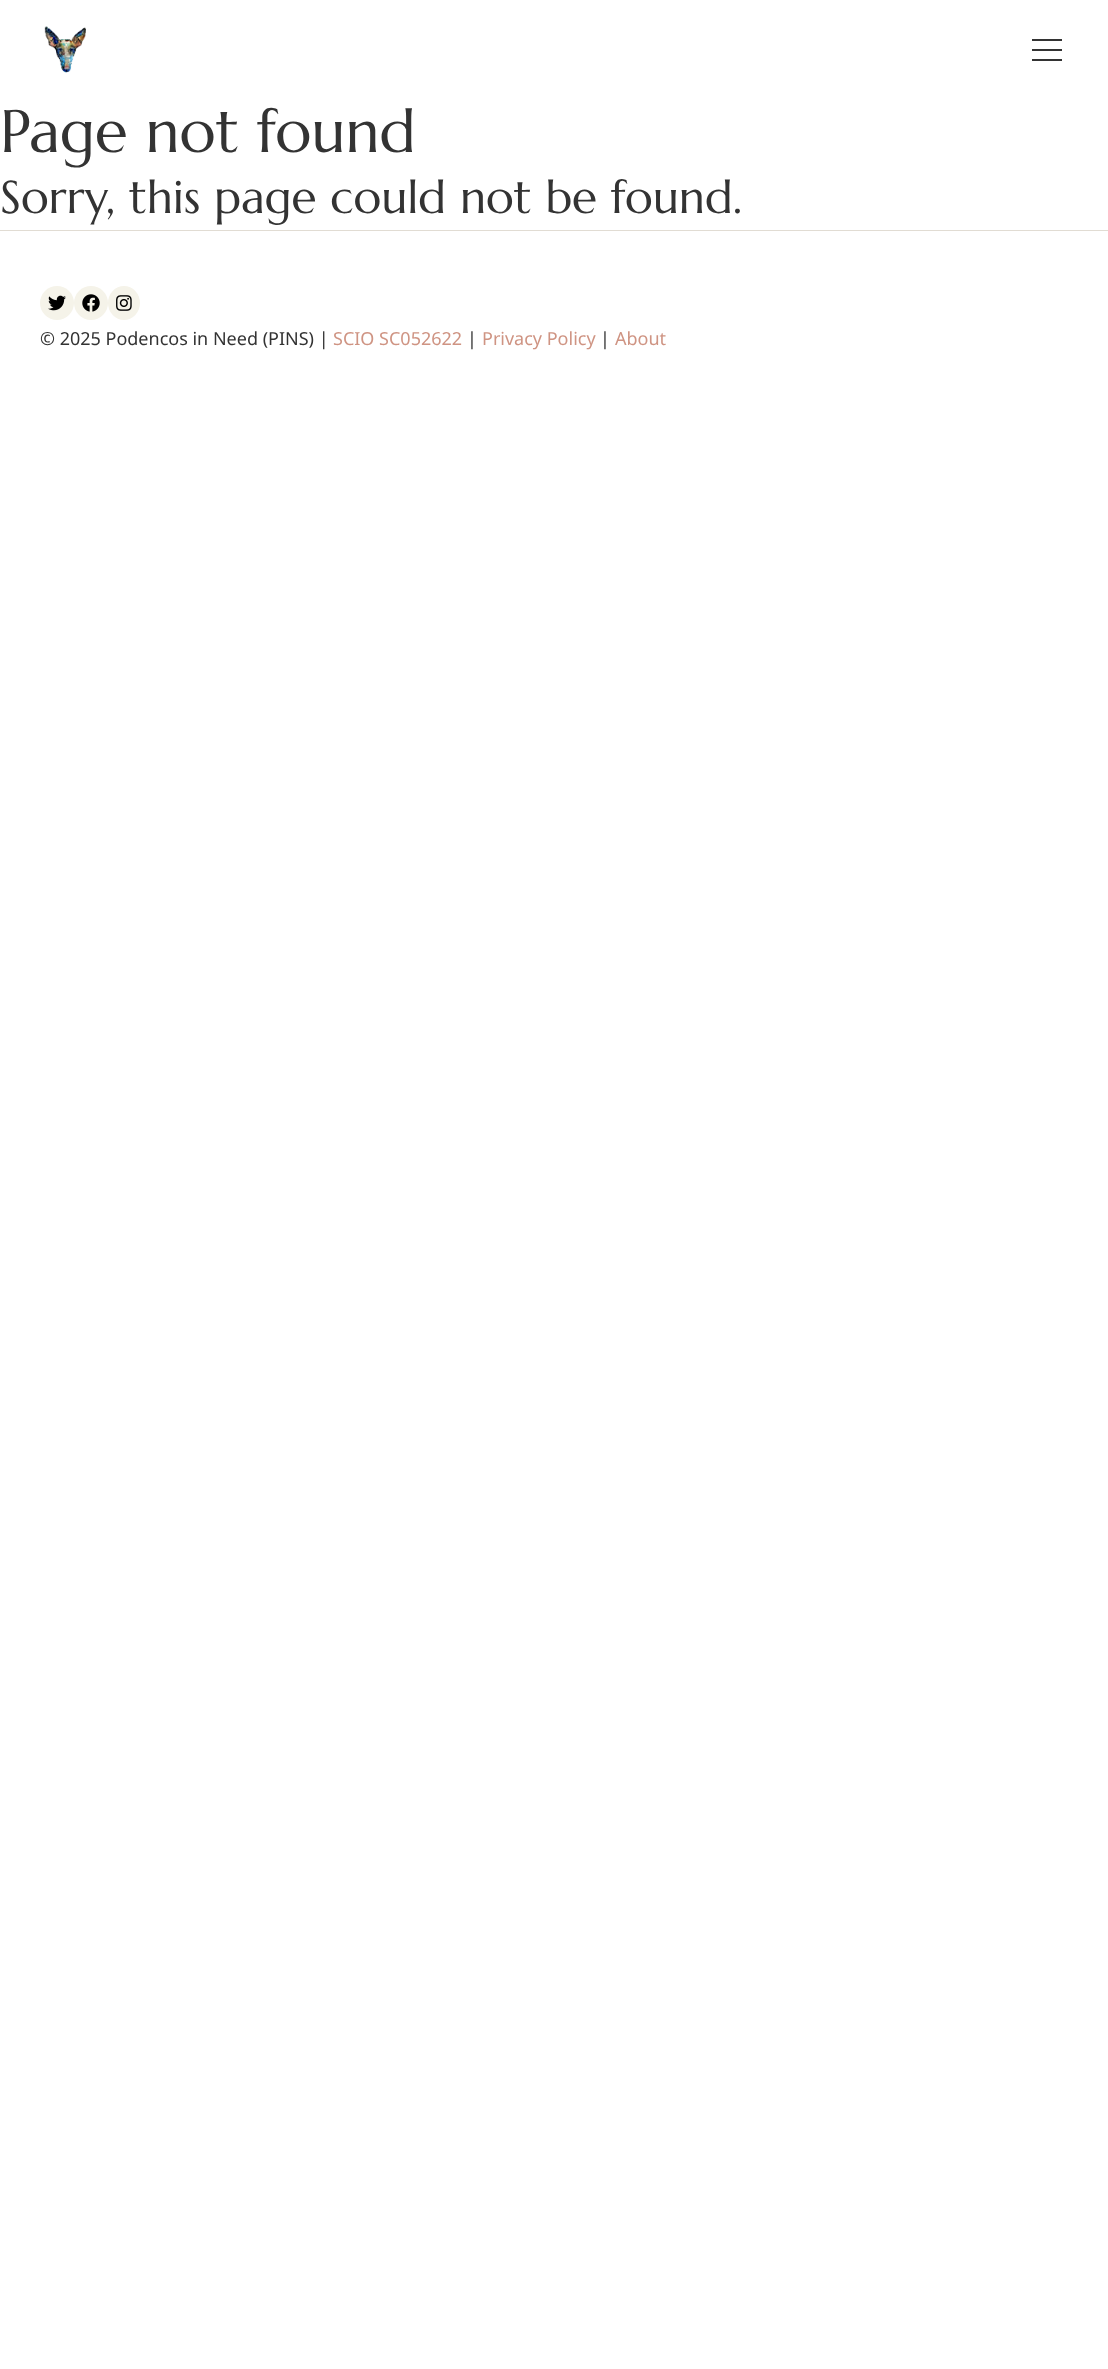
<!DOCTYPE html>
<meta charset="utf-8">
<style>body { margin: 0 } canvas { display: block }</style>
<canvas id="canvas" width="1108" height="2369"></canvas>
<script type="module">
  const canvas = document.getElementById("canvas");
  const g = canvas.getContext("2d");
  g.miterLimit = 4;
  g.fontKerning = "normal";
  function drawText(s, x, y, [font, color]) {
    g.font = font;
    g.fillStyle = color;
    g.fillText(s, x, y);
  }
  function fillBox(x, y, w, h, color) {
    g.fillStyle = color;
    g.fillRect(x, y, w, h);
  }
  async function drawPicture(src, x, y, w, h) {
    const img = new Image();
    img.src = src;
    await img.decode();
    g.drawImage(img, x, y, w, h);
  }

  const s1 = ["60px Marcellus", "#333333"];
  const s2 = ["46px Marcellus", "#333333"];
  const s3 = ["18px Noto Sans", "#333333"];
  const s4 = ["18px Noto Sans", "#CF9483"];

  fillBox(0, 0, 1108, 2369, "#FFFFFF");
  await drawPicture("pic1.png", 44, 26, 42, 47);
  fillBox(1032, 39, 30, 2, "#333333");
  fillBox(1032, 49, 30, 2, "#333333");
  fillBox(1032, 59, 30, 2, "#333333");
  drawText("Page not found", 0, 152, s1);
  drawText("Sorry, this page could not be found.", 0, 213, s2);
  fillBox(0, 230, 1108, 1, "#E1DCD3");
  g.fillStyle = "#F5F3E9";
  g.beginPath();
  g.arc(57, 303, 17, 0, Math.PI * 2);
  g.fill();
  await drawPicture("pic2.png", 48, 295, 18, 16);
  g.beginPath();
  g.arc(91, 303, 17, 0, Math.PI * 2);
  g.fill();
  await drawPicture("pic3.png", 82, 294, 18, 18);
  g.beginPath();
  g.ellipse(124, 303, 16, 17, 0, 0, Math.PI * 2);
  g.fill();
  await drawPicture("pic4.png", 116, 295, 16, 16);
  drawText("© 2025 Podencos in Need (PINS) |", 40, 345, s3);
  drawText("SCIO SC052622", 333, 345, s4);
  drawText("|", 467, 345, s3);
  drawText("Privacy Policy", 482, 345, s4);
  drawText("|", 600, 345, s3);
  drawText("About", 615, 345, s4);
</script>
